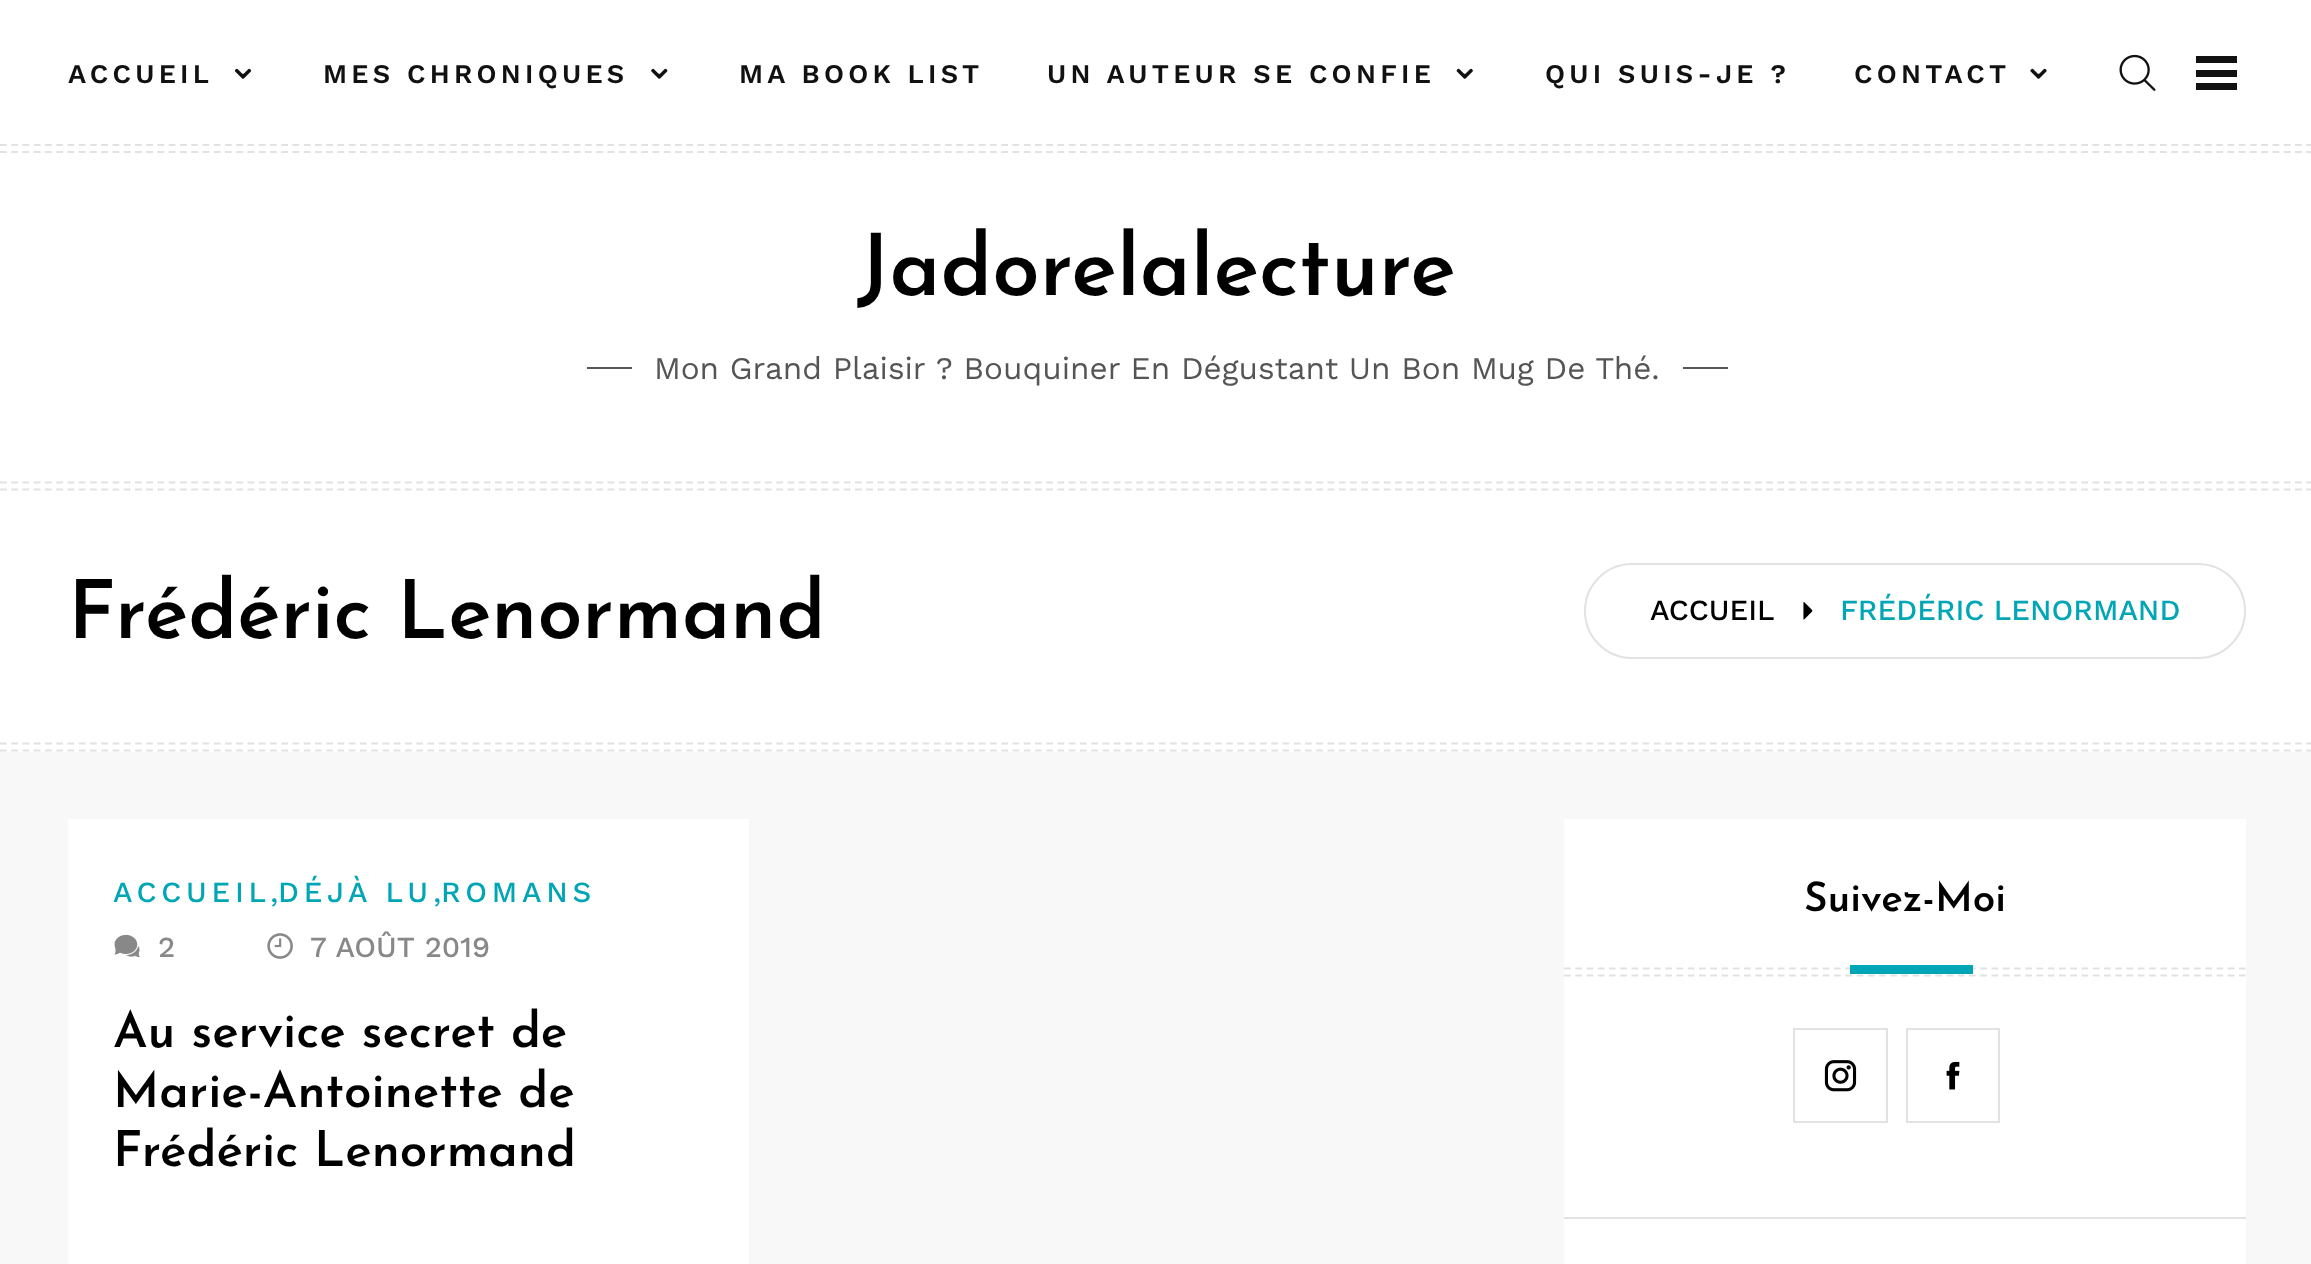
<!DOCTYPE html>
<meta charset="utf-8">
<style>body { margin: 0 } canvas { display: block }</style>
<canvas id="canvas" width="2311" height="1264"></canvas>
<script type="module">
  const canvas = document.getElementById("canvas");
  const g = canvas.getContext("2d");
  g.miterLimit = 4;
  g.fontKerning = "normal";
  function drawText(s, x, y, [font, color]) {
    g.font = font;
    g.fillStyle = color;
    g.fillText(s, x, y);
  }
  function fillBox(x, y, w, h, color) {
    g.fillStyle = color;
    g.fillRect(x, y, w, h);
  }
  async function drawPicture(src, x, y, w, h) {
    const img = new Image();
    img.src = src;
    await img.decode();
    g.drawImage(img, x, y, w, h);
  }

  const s1 = ["600 27px Work Sans", "#111111"];
  const s2 = ["600 85.5px Josefin Sans", "#000000"];
  const s3 = ["31.5px Work Sans", "#555555"];
  const s4 = ["600 81px Josefin Sans", "#000000"];
  const s5 = ["500 29.25px Work Sans", "#000000"];
  const s6 = ["500 29.25px Work Sans", "#00A6B6"];
  const s7 = ["31.5px Work Sans", "#00A6B6"];
  const s8 = ["500 29.25px Work Sans", "#888888"];
  const s9 = ["600 49.5px Josefin Sans", "#000000"];
  const s10 = ["600 40.5px Josefin Sans", "#000000"];

  fillBox(0, 0, 2311, 1264, "#F8F8F8");
  fillBox(0, 0, 2311, 752, "#FFFFFF");
  g.beginPath();
  g.moveTo(0, 152);
  g.lineTo(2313, 152);
  g.strokeStyle = "#E2E2E2";
  g.lineWidth = 2.2;
  g.setLineDash([6.75, 4.5]);
  g.stroke();
  g.letterSpacing = "4.3px";
  drawText("ACCUEIL", 68, 83, s1);
  await drawPicture("pic1.png", 234, 68, 18, 11);
  drawText("MES CHRONIQUES", 323, 83, s1);
  await drawPicture("pic2.png", 651, 68, 17, 11);
  drawText("MA BOOK LIST", 739, 83, s1);
  drawText("UN AUTEUR SE CONFIE", 1047, 83, s1);
  await drawPicture("pic3.png", 1456, 68, 17, 11);
  drawText("QUI SUIS-JE ?", 1545, 83, s1);
  drawText("CONTACT", 1854, 83, s1);
  await drawPicture("pic4.png", 2030, 68, 17, 11);
  await drawPicture("pic5.png", 2119, 54, 37, 37);
  fillBox(2196, 56, 41, 7, "#111111");
  fillBox(2196, 70, 41, 7, "#111111");
  fillBox(2196, 83, 41, 7, "#111111");
  g.beginPath();
  g.moveTo(0, 145);
  g.lineTo(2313, 145);
  g.stroke();
  g.beginPath();
  g.moveTo(0, 489.5);
  g.lineTo(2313, 489.5);
  g.stroke();
  g.letterSpacing = "0px";
  drawText("Jadorelalecture", 857, 295, s2);
  fillBox(587, 367, 45, 2, "#555555");
  drawText("Mon Grand Plaisir ? Bouquiner En Dégustant Un Bon Mug De Thé.", 654, 379, s3);
  fillBox(1683, 367, 45, 2, "#555555");
  g.beginPath();
  g.moveTo(0, 482.5);
  g.lineTo(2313, 482.5);
  g.stroke();
  g.beginPath();
  g.moveTo(0, 750.5);
  g.lineTo(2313, 750.5);
  g.stroke();
  drawText("Frédéric Lenormand", 68, 638, s4);
  g.beginPath();
  g.roundRect(1585, 564, 660, 94, 47);
  g.lineWidth = 2;
  g.setLineDash([]);
  g.stroke();
  drawText("ACCUEIL", 1650, 620, s5);
  await drawPicture("pic6.png", 1803, 602, 10, 18);
  drawText("FRÉDÉRIC LENORMAND", 1840, 620, s6);
  g.beginPath();
  g.moveTo(0, 743.5);
  g.lineTo(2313, 743.5);
  g.lineWidth = 2.2;
  g.setLineDash([6.75, 4.5]);
  g.stroke();
  fillBox(68, 819, 681, 445, "#FFFFFF");
  g.letterSpacing = "4.75px";
  drawText("ACCUEIL", 113, 902, s6);
  g.letterSpacing = "0px";
  drawText(",", 270, 902, s7);
  g.letterSpacing = "4.75px";
  drawText("DÉJÀ LU", 278, 902, s6);
  g.letterSpacing = "0px";
  drawText(",", 433, 902, s7);
  g.letterSpacing = "4.75px";
  drawText("ROMANS", 441, 902, s6);
  await drawPicture("pic7.png", 114, 934, 26, 24);
  g.letterSpacing = "0px";
  drawText("2", 158, 957, s8);
  await drawPicture("pic8.png", 267, 933, 26, 26);
  g.wordSpacing = "1px";
  drawText("7 AOÛT 2019", 310, 957, s8);
  g.wordSpacing = "0px";
  drawText("Au service secret de", 113, 1047, s9);
  drawText("Marie-Antoinette de", 113, 1107, s9);
  drawText("Frédéric Lenormand", 113, 1166, s9);
  fillBox(1564, 819, 682, 445, "#FFFFFF");
  fillBox(1564, 1217, 682, 2, "#E2E2E2");
  g.beginPath();
  g.moveTo(1564, 975.5);
  g.lineTo(2245.5, 975.5);
  g.stroke();
  drawText("Suivez-Moi", 1804, 911, s10);
  g.beginPath();
  g.moveTo(1564, 968.5);
  g.lineTo(2245.5, 968.5);
  g.stroke();
  fillBox(1850, 965, 123, 9, "#00A6B6");
  g.lineWidth = 2;
  g.setLineDash([]);
  g.strokeRect(1794, 1029, 93, 93);
  await drawPicture("pic9.png", 1824, 1060, 33, 32);
  g.strokeRect(1907, 1029, 92, 93);
  await drawPicture("pic10.png", 1946, 1061, 14, 29);
</script>
